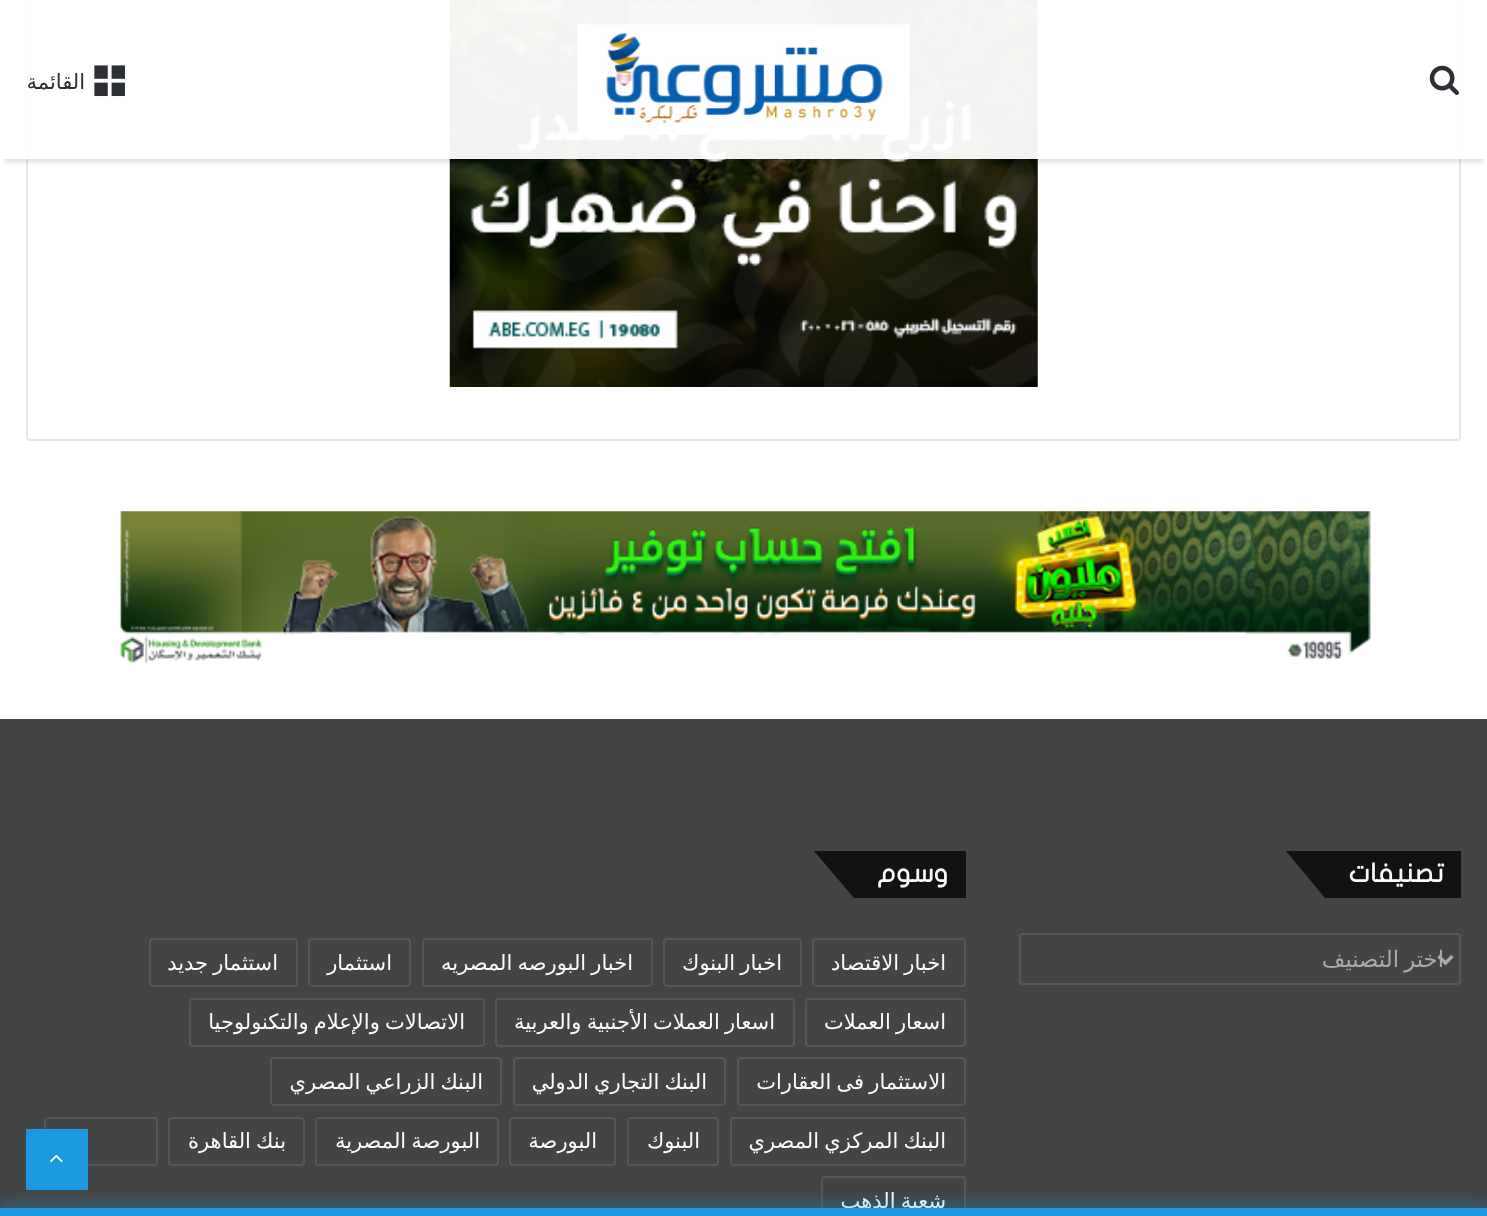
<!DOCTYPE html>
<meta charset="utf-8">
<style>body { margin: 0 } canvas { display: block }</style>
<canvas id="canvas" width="1487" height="1216"></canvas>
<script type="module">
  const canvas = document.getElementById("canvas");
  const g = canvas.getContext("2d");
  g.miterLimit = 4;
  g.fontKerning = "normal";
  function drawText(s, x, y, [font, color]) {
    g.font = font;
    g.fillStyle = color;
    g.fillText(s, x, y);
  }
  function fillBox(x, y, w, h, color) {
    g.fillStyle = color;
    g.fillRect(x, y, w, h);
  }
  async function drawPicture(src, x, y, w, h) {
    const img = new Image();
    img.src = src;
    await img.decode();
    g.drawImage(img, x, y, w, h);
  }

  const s1 = ["21px DejaVu Sans", "#2C2F34"];
  const s2 = ["bold 26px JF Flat", "#FBFBFB"];
  const s3 = ["22.75px DejaVu Sans", "#A9A9A9"];
  const s4 = ["21px DejaVu Sans", "#FBFBFB"];

  fillBox(0, 0, 1487, 1216, "#FFFFFF");
  g.beginPath();
  g.roundRect(27, -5, 1433, 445, 3);
  g.strokeStyle = "#E6E6E6";
  g.lineWidth = 2;
  g.stroke();
  await drawPicture("pic1.png", 449, 0, 589, 387);
  g.save();
  g.beginPath();
  g.rect(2, 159, 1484, 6);
  g.clip();
  g.fillStyle = "rgba(0, 0, 0, 0.1)";
  g.filter = "blur(2px)";
  g.beginPath();
  g.rect(4, 11, 1480, 152);
  g.fill();
  g.filter = "none";
  g.restore();
  fillBox(26, 0, 1435, 159, "rgba(255, 255, 255, 0.95)");
  await drawPicture("pic2.png", 1429, 65, 30, 30);
  await drawPicture("pic3.png", 577, 24, 333, 111);
  await drawPicture("pic4.png", 94, 65, 31, 32);
  g.direction = "rtl";
  drawText("القائمة", 85, 89, s1);
  await drawPicture("pic5.png", 120, 511, 1251, 153);
  fillBox(0, 719, 1487, 489, "#444444");
  fillBox(1377, 851, 84, 47, "#121212");
  g.beginPath();
  g.moveTo(1286, 851);
  g.lineTo(1377, 851);
  g.lineTo(1417, 898);
  g.lineTo(1325, 898);
  g.closePath();
  g.fill();
  drawText("تصنيفات", 1444, 882, s2);
  g.beginPath();
  g.roundRect(1020, 934, 440, 50, 3);
  g.strokeStyle = "#575757";
  g.stroke();
  g.beginPath();
  g.moveTo(1438.5, 956);
  g.lineTo(1445.5, 963);
  g.lineTo(1452.5, 956);
  g.strokeStyle = "#A9A9A9";
  g.lineWidth = 3.5;
  g.stroke();
  g.wordSpacing = "-2px";
  drawText("اختر التصنيف", 1444, 967, s3);
  fillBox(889, 851, 77, 47, "#121212");
  g.beginPath();
  g.moveTo(814, 851);
  g.lineTo(889, 851);
  g.lineTo(929, 898);
  g.lineTo(854, 898);
  g.closePath();
  g.fill();
  g.wordSpacing = "0px";
  drawText("وسوم", 948, 882, s2);
  g.beginPath();
  g.roundRect(813, 939, 152, 47, 3);
  g.strokeStyle = "#555555";
  g.lineWidth = 2;
  g.stroke();
  g.wordSpacing = "-1.5px";
  drawText("اخبار الاقتصاد", 946, 970, s4);
  g.beginPath();
  g.roundRect(664, 939, 137, 47, 3);
  g.stroke();
  drawText("اخبار البنوك", 782, 970, s4);
  g.beginPath();
  g.roundRect(423, 939, 229, 47, 3);
  g.stroke();
  drawText("اخبار البورصه المصريه", 633, 970, s4);
  g.beginPath();
  g.roundRect(309, 939, 101, 47, 3);
  g.stroke();
  g.wordSpacing = "0px";
  drawText("استثمار", 392, 970, s4);
  g.beginPath();
  g.roundRect(150, 939, 147, 47, 3);
  g.stroke();
  g.wordSpacing = "-1.5px";
  drawText("استثمار جديد", 278, 970, s4);
  g.beginPath();
  g.roundRect(806, 999, 159, 47, 3);
  g.stroke();
  drawText("اسعار العملات", 946, 1029, s4);
  g.beginPath();
  g.roundRect(496, 999, 298, 47, 3);
  g.stroke();
  drawText("اسعار العملات الأجنبية والعربية", 775, 1029, s4);
  g.beginPath();
  g.roundRect(190, 999, 294, 47, 3);
  g.stroke();
  drawText("الاتصالات والإعلام والتكنولوجيا", 465, 1029, s4);
  g.beginPath();
  g.roundRect(738, 1058, 227, 47, 3);
  g.stroke();
  drawText("الاستثمار فى العقارات", 946, 1089, s4);
  g.beginPath();
  g.roundRect(514, 1058, 211, 47, 3);
  g.stroke();
  drawText("البنك التجاري الدولي", 707, 1089, s4);
  g.beginPath();
  g.roundRect(271, 1058, 230, 47, 3);
  g.stroke();
  drawText("البنك الزراعي المصري", 483, 1089, s4);
  g.beginPath();
  g.roundRect(731, 1118, 234, 47, 3);
  g.stroke();
  drawText("البنك المركزي المصري", 946, 1148, s4);
  g.beginPath();
  g.roundRect(628, 1118, 90, 47, 3);
  g.stroke();
  g.wordSpacing = "0px";
  drawText("البنوك", 700, 1148, s4);
  g.beginPath();
  g.roundRect(510, 1118, 105, 47, 3);
  g.stroke();
  drawText("البورصة", 597, 1148, s4);
  g.beginPath();
  g.roundRect(316, 1118, 182, 47, 3);
  g.stroke();
  g.wordSpacing = "-1.5px";
  drawText("البورصة المصرية", 480, 1148, s4);
  g.beginPath();
  g.roundRect(169, 1118, 135, 47, 3);
  g.stroke();
  drawText("بنك القاهرة", 286, 1148, s4);
  g.beginPath();
  g.roundRect(45, 1118, 112, 47, 3);
  g.stroke();
  g.fillStyle = "#424242";
  g.beginPath();
  g.roundRect(822, 1177, 143, 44, 3);
  g.fill();
  g.stroke();
  drawText("شعبة الذهب", 946, 1208, s4);
  fillBox(26, 1129, 62, 61, "#1B98E0");
  await drawPicture("pic6.png", 50, 1154, 13, 9);
  g.fillStyle = "rgba(27, 152, 224, 0.7)";
  g.filter = "blur(9px)";
  g.beginPath();
  g.rect(0, 1208, 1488, 8);
  g.fill();
  g.filter = "none";
  fillBox(0, 1208, 1487, 8, "#1B98E0");
</script>
